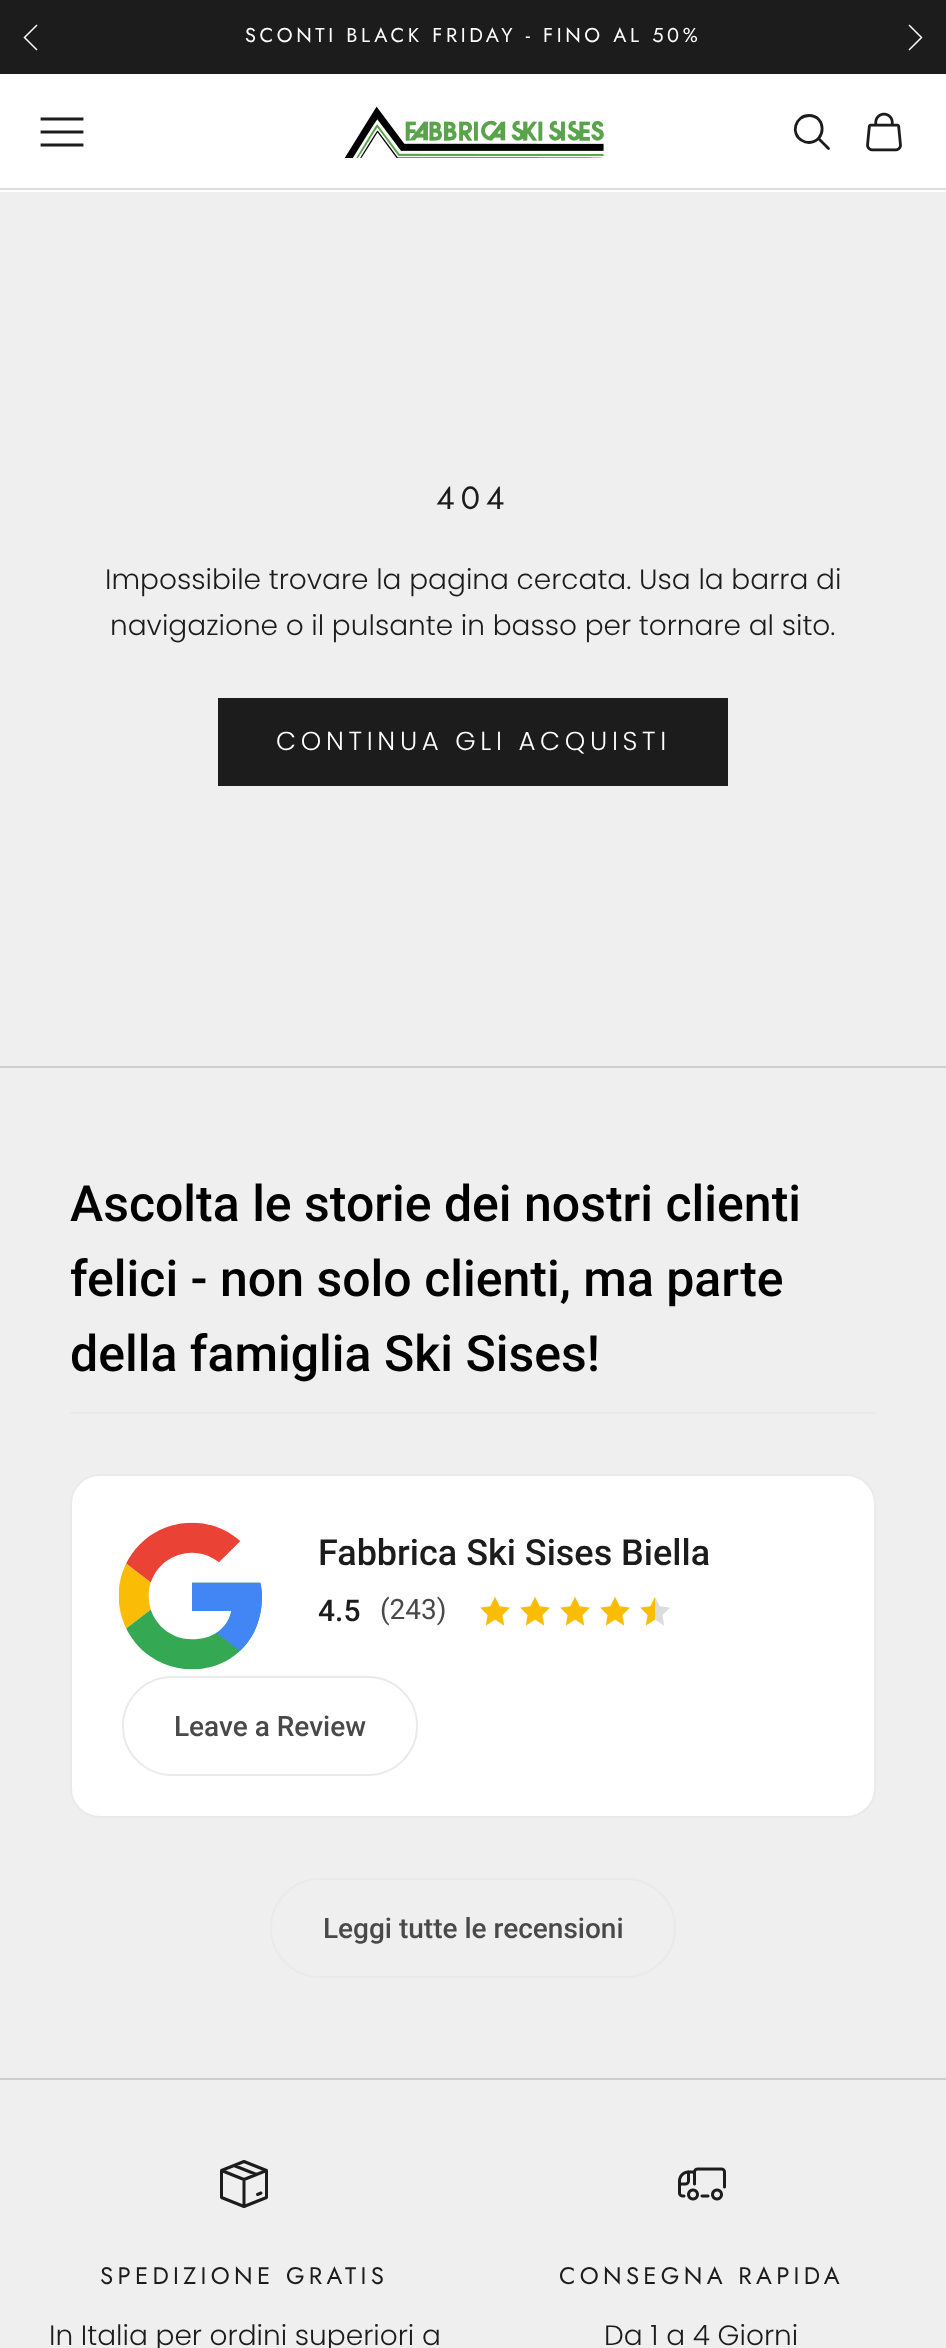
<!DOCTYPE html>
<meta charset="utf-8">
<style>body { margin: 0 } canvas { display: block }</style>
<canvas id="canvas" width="946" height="2348"></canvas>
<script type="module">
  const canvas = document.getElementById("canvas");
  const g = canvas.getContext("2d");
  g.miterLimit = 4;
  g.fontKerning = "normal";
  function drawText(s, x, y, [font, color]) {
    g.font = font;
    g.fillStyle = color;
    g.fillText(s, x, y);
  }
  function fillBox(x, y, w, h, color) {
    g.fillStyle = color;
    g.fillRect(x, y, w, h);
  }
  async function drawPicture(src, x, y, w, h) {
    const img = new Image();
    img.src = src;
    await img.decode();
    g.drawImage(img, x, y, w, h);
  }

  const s1 = ["20px Jost", "#FFFFFF"];
  const s2 = ["32px Jost", "#1C1C1C"];
  const s3 = ["300 28px Poppins", "#1C1C1C"];
  const s4 = ["300 26px Poppins", "#FFFFFF"];
  const s5 = ["500 50px Roboto", "#000000"];
  const s6 = ["500 36px Roboto", "#1C1C1C"];
  const s7 = ["500 30px Roboto", "#1C1C1C"];
  const s8 = ["28px Roboto", "#4A4949"];
  const s9 = ["500 28px Roboto", "#4A4949"];
  const s10 = ["24px Jost", "#1C1C1C"];

  fillBox(0, 0, 946, 2348, "#EFEFEF");
  fillBox(0, 0, 946, 74, "#1C1C1C");
  g.beginPath();
  g.moveTo(36.5, 25.5);
  g.lineTo(24.5, 37.5);
  g.lineTo(36.5, 49.5);
  g.strokeStyle = "#FFFFFF";
  g.lineWidth = 1.5;
  g.lineCap = "square";
  g.stroke();
  g.letterSpacing = "3.6px";
  drawText("SCONTI BLACK FRIDAY - FINO AL 50%", 245, 42, s1);
  g.beginPath();
  g.moveTo(909.5, 49.5);
  g.lineTo(921.5, 37.5);
  g.lineTo(909.5, 25.5);
  g.stroke();
  fillBox(0, 74, 946, 114, "#FFFFFF");
  fillBox(0, 188, 946, 2, "#DDDDDD");
  fillBox(0, 190, 946, 2, "#FFFFFF");
  g.beginPath();
  g.moveTo(42, 145);
  g.lineTo(82, 145);
  g.moveTo(42, 132);
  g.lineTo(82, 132);
  g.moveTo(42, 119);
  g.lineTo(82, 119);
  g.strokeStyle = "#1C1C1C";
  g.lineWidth = 2.8;
  g.stroke();
  await drawPicture("pic1.png", 344, 106, 260, 52);
  g.beginPath();
  g.moveTo(809, 115.5);
  g.bezierCurveTo(795, 115.5, 790, 134, 802, 140.5);
  g.bezierCurveTo(804, 142, 806.5, 142.5, 809, 142.5);
  g.bezierCurveTo(826.5, 141.5, 826.5, 115.5, 809, 115.5);
  g.closePath();
  g.lineCap = "butt";
  g.stroke();
  g.beginPath();
  g.moveTo(819, 139);
  g.lineTo(828.5, 148.5);
  g.lineCap = "round";
  g.stroke();
  await drawPicture("pic2.png", 866, 112, 36, 40);
  g.letterSpacing = "6px";
  drawText("404", 436, 509, s2);
  g.letterSpacing = "0px";
  drawText("Impossibile trovare la pagina cercata. Usa la barra di", 105, 589, s3);
  drawText("navigazione o il pulsante in basso per tornare al sito.", 110, 635, s3);
  g.beginPath();
  g.rect(219, 699, 508, 86);
  g.fill();
  g.lineWidth = 2;
  g.stroke();
  g.letterSpacing = "4.7px";
  drawText("CONTINUA GLI ACQUISTI", 276, 750, s4);
  fillBox(0, 1066, 946, 2, "#CFCFCF");
  fillBox(70, 1412, 806, 2, "#EAEAEA");
  g.letterSpacing = "0px";
  drawText("Ascolta le storie dei nostri clienti", 70, 1221, s5);
  drawText("felici - non solo clienti, ma parte", 70, 1296, s5);
  drawText("della famiglia Ski Sises!", 70, 1371, s5);
  g.fillStyle = "#FFFFFF";
  g.beginPath();
  g.roundRect(71, 1475, 804, 342, 29);
  g.fill();
  g.strokeStyle = "#EAEAEA";
  g.stroke();
  await drawPicture("pic3.png", 118, 1522, 144, 148);
  drawText("Fabbrica Ski Sises Biella", 318, 1565, s6);
  drawText("4.5", 318, 1621, s7);
  drawText("(243)", 380, 1619, s8);
  await drawPicture("pic4.png", 480, 1597, 190, 29);
  g.beginPath();
  g.roundRect(123, 1677, 294, 98, 49);
  g.stroke();
  drawText("Leave a Review", 174, 1736, s9);
  g.beginPath();
  g.roundRect(271, 1879, 404, 98, 49);
  g.stroke();
  drawText("Leggi tutte le recensioni", 323, 1938, s9);
  fillBox(0, 2078, 946, 2, "#CFCFCF");
  g.beginPath();
  g.moveTo(221.5, 2170.5);
  g.lineTo(244, 2179.5);
  g.lineTo(266.5, 2170.5);
  g.lineTo(244, 2161.5);
  g.closePath();
  g.moveTo(221.5, 2170.5);
  g.lineTo(221.5, 2197.5);
  g.lineTo(244, 2206.5);
  g.lineTo(244, 2179.5);
  g.closePath();
  g.moveTo(266.5, 2170.5);
  g.lineTo(266.5, 2197.5);
  g.lineTo(244, 2206.5);
  g.lineTo(244, 2179.5);
  g.closePath();
  g.moveTo(256.5, 2174.5);
  g.lineTo(234, 2165.5);
  g.moveTo(261, 2193);
  g.lineTo(257.5, 2194.5);
  g.strokeStyle = "#1C1C1C";
  g.lineWidth = 3;
  g.lineJoin = "round";
  g.stroke();
  g.letterSpacing = "4.3px";
  drawText("SPEDIZIONE GRATIS", 100, 2284, s10);
  g.letterSpacing = "0px";
  drawText("In Italia per ordini superiori a", 49, 2345, s3);
  await drawPicture("pic5.png", 678, 2167, 48, 34);
  g.letterSpacing = "4.3px";
  drawText("CONSEGNA RAPIDA", 559, 2284, s10);
  g.letterSpacing = "0px";
  drawText("Da 1 a 4 Giorni", 604, 2345, s3);
</script>
